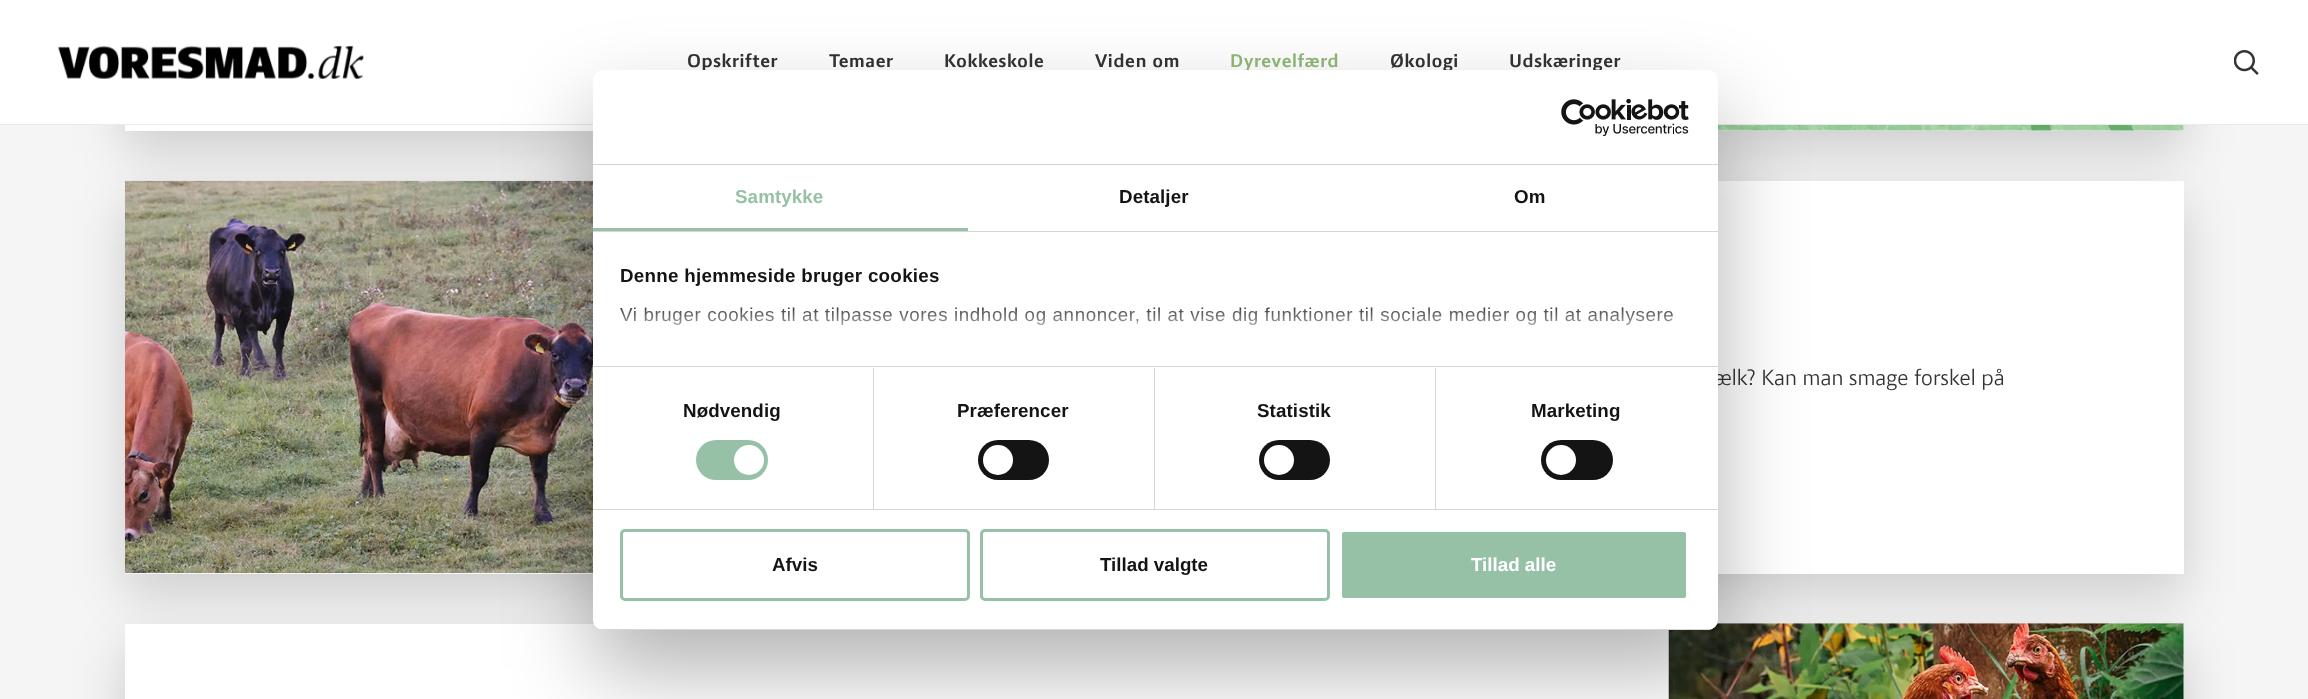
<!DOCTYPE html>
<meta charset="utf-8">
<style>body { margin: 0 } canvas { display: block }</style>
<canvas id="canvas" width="2308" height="699"></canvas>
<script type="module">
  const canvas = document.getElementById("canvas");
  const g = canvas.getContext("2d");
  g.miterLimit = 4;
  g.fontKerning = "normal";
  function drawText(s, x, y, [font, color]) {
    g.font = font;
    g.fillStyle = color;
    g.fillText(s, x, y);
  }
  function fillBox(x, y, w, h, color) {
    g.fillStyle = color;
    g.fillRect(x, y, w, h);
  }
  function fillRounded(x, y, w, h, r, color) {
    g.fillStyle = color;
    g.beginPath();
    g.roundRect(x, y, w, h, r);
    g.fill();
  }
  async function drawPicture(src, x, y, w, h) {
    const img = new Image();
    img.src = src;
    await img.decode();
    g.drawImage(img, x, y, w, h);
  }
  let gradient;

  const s1 = ["bold 18.75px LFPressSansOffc", "#333333"];
  const s2 = ["bold 18.75px LFPressSansOffc", "#91BA78"];
  const s3 = ["22.5px LFPressSansOffc", "#333333"];
  const s4 = ["bold 18.75px Liberation Sans", "#96C1A7"];
  const s5 = ["bold 18.75px Liberation Sans", "#141414"];
  const s6 = ["18.75px Liberation Sans", "#141414"];
  const s7 = ["bold 18.75px Liberation Sans", "#FFFFFF"];

  fillBox(0, 0, 2308, 699, "#F5F5F5");
  g.fillStyle = "rgba(0, 0, 0, 0.16)";
  g.filter = "blur(25px)";
  g.beginPath();
  g.rect(125, -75, 2059, 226);
  g.fill();
  g.filter = "none";
  fillBox(0, 0, 2308, 124, "#FFFFFF");
  fillBox(0, 124, 2308, 1, "#EBEBEB");
  await drawPicture("pic1.png", 58, 45, 306, 34);
  g.letterSpacing = "0.5px";
  drawText("Opskrifter", 687, 67, s1);
  drawText("Temaer", 829, 67, s1);
  drawText("Kokkeskole", 944, 67, s1);
  drawText("Viden om", 1095, 67, s1);
  drawText("Dyrevelfærd", 1230, 67, s2);
  drawText("Økologi", 1390, 67, s1);
  drawText("Udskæringer", 1509, 67, s1);
  await drawPicture("pic2.png", 2234, 50, 25, 25);
  fillBox(125, 125, 2059, 6, "#FFFFFF");
  await drawPicture("pic3.png", 1718, 125, 466, 6);
  g.fillStyle = "rgba(0, 0, 0, 0.16)";
  g.filter = "blur(25px)";
  g.beginPath();
  g.rect(125, 201, 2059, 393);
  g.fill();
  g.filter = "none";
  fillBox(125, 181, 2059, 393, "#FFFFFF");
  await drawPicture("pic4.png", 125, 180, 468, 394);
  g.letterSpacing = "0px";
  drawText("ælk? Kan man smage forskel på", 1714, 385, s3);
  g.fillStyle = "rgba(0, 0, 0, 0.16)";
  g.filter = "blur(25px)";
  g.beginPath();
  g.rect(125, 644, 2059, 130);
  g.fill();
  g.filter = "none";
  fillBox(125, 624, 2059, 75, "#FFFFFF");
  await drawPicture("pic5.png", 1668, 623, 516, 76);
  g.fillStyle = "rgba(0, 0, 0, 0.3)";
  g.filter = "blur(42.5px)";
  g.beginPath();
  g.roundRect(593, 110, 1125, 560, 10);
  g.fill();
  g.filter = "none";
  fillRounded(593, 70, 1125, 560, 10, "#FFFFFF");
  fillBox(593, 164, 1125, 1, "#D6D6D6");
  await drawPicture("pic6.png", 1561, 99, 128, 37);
  fillBox(593, 231, 1125, 1, "#D6D6D6");
  fillBox(593, 228, 375, 3, "#96C1A7");
  g.letterSpacing = "0.1px";
  drawText("Samtykke", 735, 203, s4);
  drawText("Detaljer", 1119, 203, s5);
  drawText("Om", 1514, 203, s5);
  fillBox(593, 366, 1125, 1, "#D6D6D6");
  g.letterSpacing = "0.3px";
  drawText("Denne hjemmeside bruger cookies", 620, 282, s5);
  g.letterSpacing = "0.62px";
  drawText("Vi bruger cookies til at tilpasse vores indhold og annoncer, til at vise dig funktioner til sociale medier og til at analysere", 620, 321, s6);
  gradient = g.createLinearGradient(1142, 366, 1142, 300);
  gradient.addColorStop(0, "#FFFFFF");
  gradient.addColorStop(0.5, "rgba(255, 255, 255, 0.8)");
  gradient.addColorStop(1, "rgba(255, 255, 255, 0)");
  g.fillStyle = gradient;
  g.fillRect(620, 307, 1054, 18);
  fillBox(593, 509, 1125, 1, "#D6D6D6");
  fillBox(873, 368, 1, 141, "#D6D6D6");
  g.letterSpacing = "0.1px";
  drawText("Nødvendig", 683, 417, s5);
  fillRounded(696, 440, 72, 40, 20, "#96C1A7");
  g.fillStyle = "#FFFFFF";
  g.beginPath();
  g.arc(749, 460, 15, 0, Math.PI * 2);
  g.fill();
  fillBox(1154, 368, 1, 141, "#D6D6D6");
  drawText("Præferencer", 957, 417, s5);
  fillRounded(978, 440, 71, 40, 20, "#141414");
  g.fillStyle = "#FFFFFF";
  g.beginPath();
  g.arc(998, 460, 15, 0, Math.PI * 2);
  g.fill();
  fillBox(1435, 368, 1, 141, "#D6D6D6");
  drawText("Statistik", 1257, 417, s5);
  fillRounded(1259, 440, 71, 40, 20, "#141414");
  g.fillStyle = "#FFFFFF";
  g.beginPath();
  g.arc(1279, 460, 15, 0, Math.PI * 2);
  g.fill();
  drawText("Marketing", 1531, 417, s5);
  fillRounded(1541, 440, 72, 40, 20, "#141414");
  g.fillStyle = "#FFFFFF";
  g.beginPath();
  g.arc(1561, 460, 15, 0, Math.PI * 2);
  g.fill();
  g.save();
  g.beginPath();
  g.roundRect(593, 70, 1125, 560, 10);
  g.clip();
  fillBox(593, 629, 1125, 1, "#D6D6D6");
  g.restore();
  g.beginPath();
  g.roundRect(621.5, 530.5, 347, 69, 3.5);
  g.strokeStyle = "#96C1A7";
  g.lineWidth = 3;
  g.stroke();
  g.letterSpacing = "0px";
  drawText("Afvis", 772, 571, s5);
  g.beginPath();
  g.roundRect(981.5, 530.5, 347, 69, 3.5);
  g.stroke();
  drawText("Tillad valgte", 1100, 571, s5);
  g.fillStyle = "#96C1A7";
  g.beginPath();
  g.roundRect(1340.5, 530.5, 347, 69, 3.5);
  g.fill();
  g.strokeStyle = "#FFFFFF";
  g.stroke();
  drawText("Tillad alle", 1471, 571, s7);
</script>
